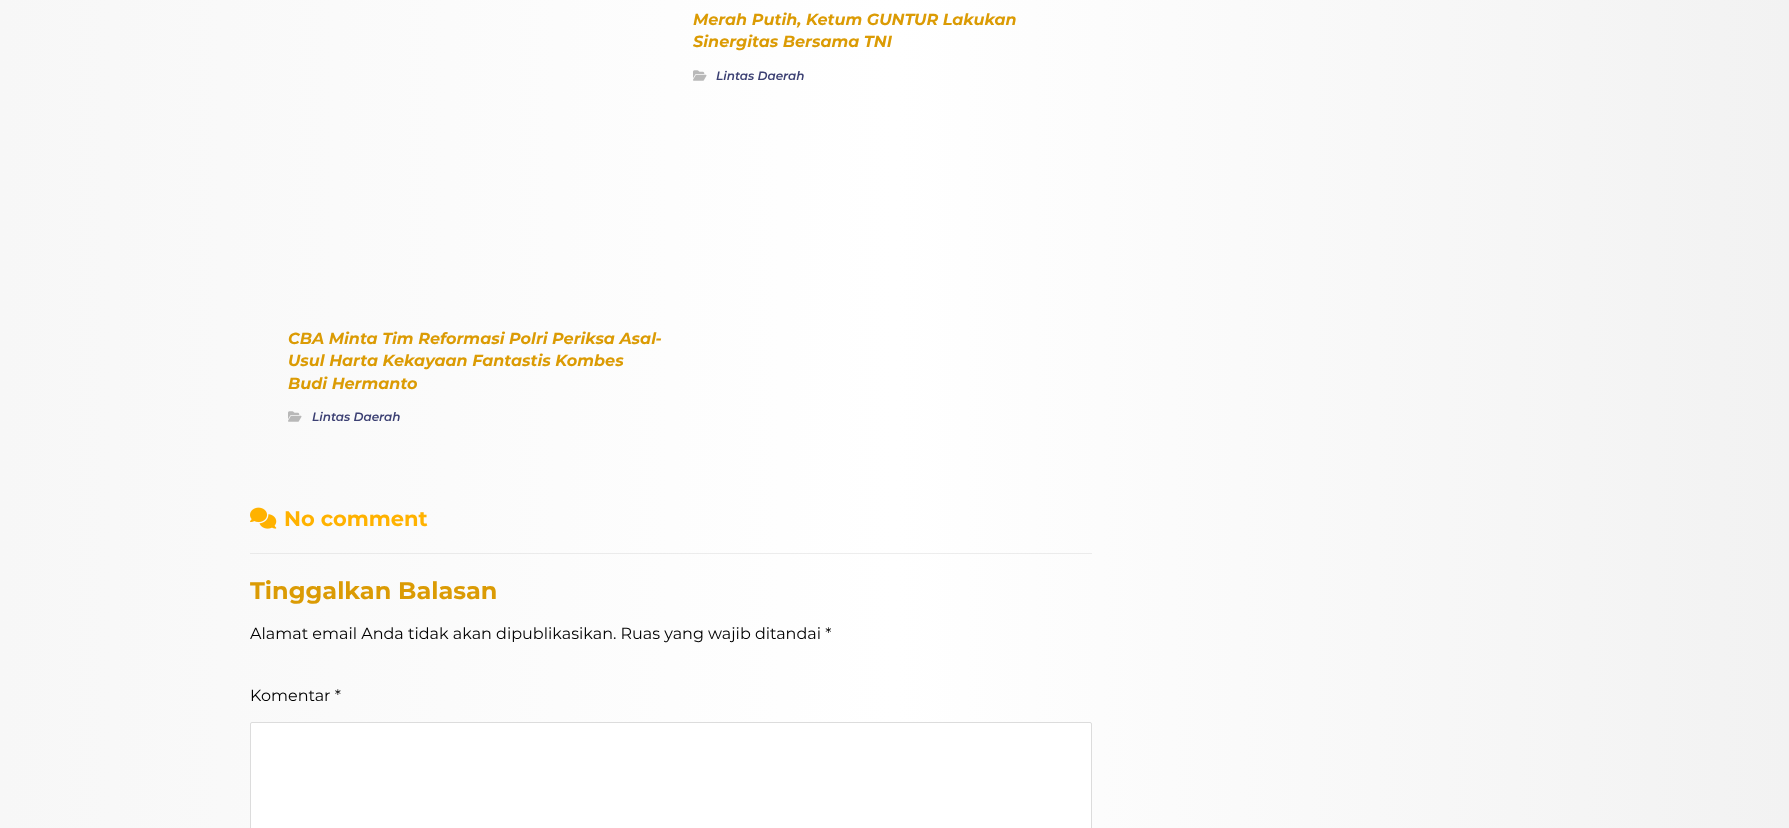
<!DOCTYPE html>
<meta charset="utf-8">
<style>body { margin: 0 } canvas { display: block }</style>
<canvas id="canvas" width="1789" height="828"></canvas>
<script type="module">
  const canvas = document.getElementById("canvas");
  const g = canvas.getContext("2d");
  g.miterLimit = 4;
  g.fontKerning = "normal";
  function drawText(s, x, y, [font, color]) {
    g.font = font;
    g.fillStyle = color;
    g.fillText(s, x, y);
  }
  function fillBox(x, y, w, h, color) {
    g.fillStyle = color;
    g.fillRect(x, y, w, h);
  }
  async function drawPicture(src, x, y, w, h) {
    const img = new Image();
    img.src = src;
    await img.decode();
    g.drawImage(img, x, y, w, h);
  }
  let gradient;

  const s1 = ["italic bold 16px Montserrat", "#DB9B04"];
  const s2 = ["italic 600 12px Montserrat", "#3C4073"];
  const s3 = ["bold 21px Montserrat", "#FFB200"];
  const s4 = ["bold 24px Montserrat", "#DB9B04"];
  const s5 = ["16px Montserrat", "#000000"];

  fillBox(0, 0, 1789, 828, "#FFFFFF");
  gradient = g.createLinearGradient(0, -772, 1789, -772);
  gradient.addColorStop(0, "#F7F7F7");
  gradient.addColorStop(0.5, "#FFFFFF");
  gradient.addColorStop(1, "#F2F2F2");
  g.fillStyle = gradient;
  g.fillRect(0, 0, 1789, 828);
  gradient = g.createLinearGradient(0, -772, 1789, -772);
  gradient.addColorStop(0, "#E7E7E7");
  gradient.addColorStop(0.5, "#EDEDED");
  gradient.addColorStop(1, "#E3E3E3");
  g.fillStyle = gradient;
  g.fillRect(250, 553, 842, 1);
  drawText("Merah Putih, Ketum GUNTUR Lakukan", 693, 25, s1);
  drawText("Sinergitas Bersama TNI", 693, 47, s1);
  await drawPicture("pic1.png", 693, 70, 14, 11);
  drawText("Lintas Daerah", 716, 80, s2);
  drawText("CBA Minta Tim Reformasi Polri Periksa Asal-", 288, 344, s1);
  drawText("Usul Harta Kekayaan Fantastis Kombes", 288, 366, s1);
  drawText("Budi Hermanto", 288, 389, s1);
  await drawPicture("pic2.png", 288, 411, 14, 11);
  drawText("Lintas Daerah", 312, 421, s2);
  await drawPicture("pic3.png", 250, 507, 27, 22);
  drawText("No comment", 284, 526, s3);
  drawText("Tinggalkan Balasan", 250, 599, s4);
  drawText("Alamat email Anda tidak akan dipublikasikan. Ruas yang wajib ditandai *", 250, 639, s5);
  drawText("Komentar *", 250, 701, s5);
  g.fillStyle = "#FFFFFF";
  g.beginPath();
  g.roundRect(250.5, 722.5, 841, 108, 1.5);
  g.fill();
  g.strokeStyle = "#DCDCDC";
  g.stroke();
</script>
